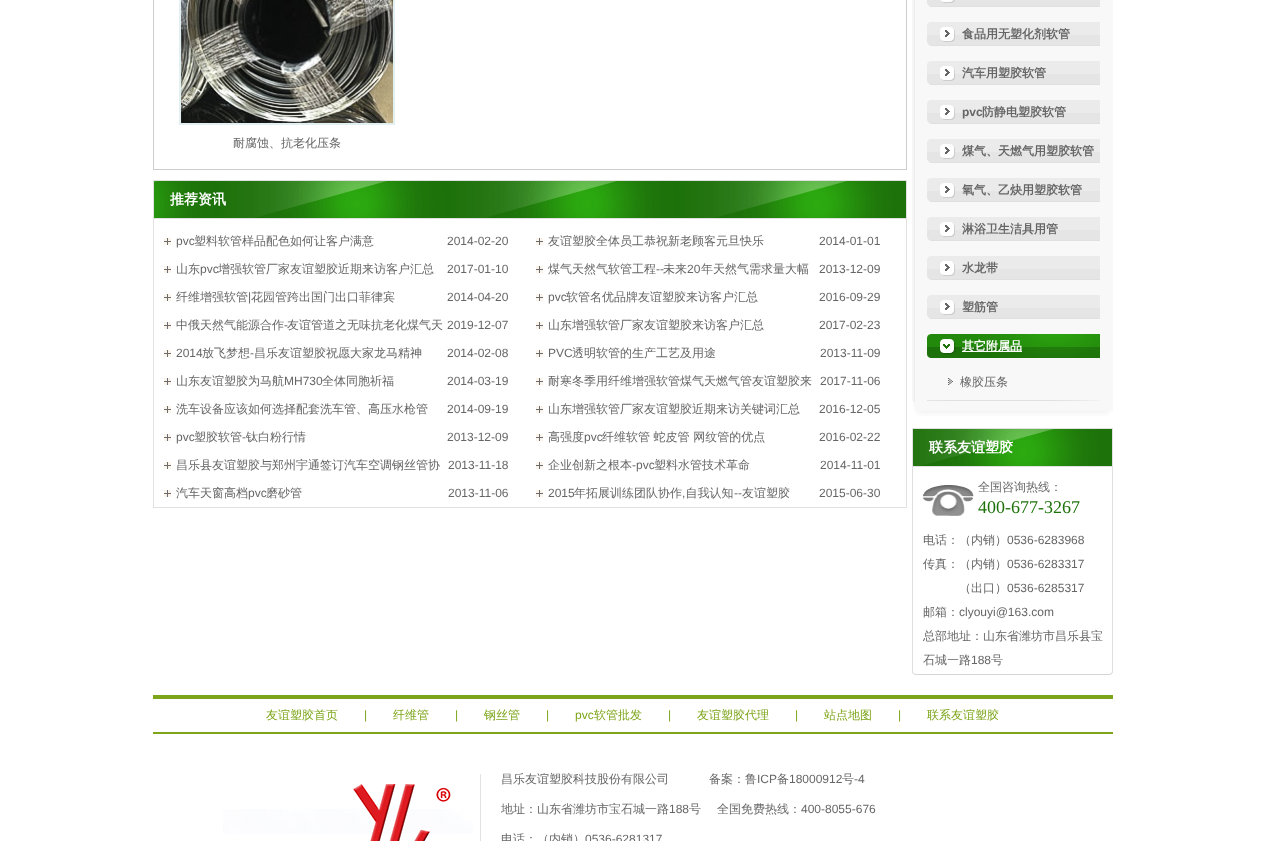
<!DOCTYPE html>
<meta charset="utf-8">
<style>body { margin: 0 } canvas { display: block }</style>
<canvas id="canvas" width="1265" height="841"></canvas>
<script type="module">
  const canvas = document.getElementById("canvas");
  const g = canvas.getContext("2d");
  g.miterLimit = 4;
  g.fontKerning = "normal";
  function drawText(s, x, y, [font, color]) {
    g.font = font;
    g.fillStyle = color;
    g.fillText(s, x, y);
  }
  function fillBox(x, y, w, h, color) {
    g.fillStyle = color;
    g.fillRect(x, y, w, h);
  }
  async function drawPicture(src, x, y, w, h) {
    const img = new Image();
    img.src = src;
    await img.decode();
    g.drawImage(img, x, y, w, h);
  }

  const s1 = ["500 12px WenQuanYi Zen Hei", "#666666"];
  const s2 = ["bold 14px WenQuanYi Zen Hei", "#FFFFFF"];
  const s3 = ["12px Liberation Sans", "#666666"];
  const s4 = ["bold 12px WenQuanYi Zen Hei", "#666666"];
  const s5 = ["bold 12px Liberation Sans", "#666666"];
  const s6 = ["bold 12px WenQuanYi Zen Hei", "#FFFFFF"];
  const s7 = ["18px Liberation Serif", "#1D710A"];
  const s8 = ["500 12px WenQuanYi Zen Hei", "#7DA519"];
  const s9 = ["12px Liberation Sans", "#7DA519"];

  fillBox(0, 0, 1265, 841, "#FFFFFF");
  g.strokeStyle = "#CCCCCC";
  g.strokeRect(153.5, -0.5, 753, 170);
  g.strokeStyle = "#E2F0F1";
  g.lineWidth = 2;
  g.strokeRect(180, -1, 214, 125);
  await drawPicture("pic1.png", 181, 0, 212, 123);
  drawText("耐腐蚀、抗老化压条", 233, 147, s1);
  await drawPicture("pic2.png", 154, 181, 752, 37);
  g.strokeStyle = "#E1E1E1";
  g.lineWidth = 1;
  g.strokeRect(153.5, 180.5, 753, 38);
  drawText("推荐资讯", 170, 204, s2);
  fillBox(906, 219, 1, 289, "#E1E1E1");
  fillBox(153, 507, 754, 1, "#E1E1E1");
  fillBox(153, 219, 1, 289, "#E1E1E1");
  await drawPicture("pic3.png", 164, 238, 7, 7);
  drawText("pvc", 176, 245, s3);
  drawText("塑料软管样品配色如何让客户满意", 194, 245, s1);
  drawText("2014-02-20", 447, 245, s3);
  await drawPicture("pic3.png", 536, 238, 7, 7);
  drawText("友谊塑胶全体员工恭祝新老顾客元旦快乐", 548, 245, s1);
  drawText("2014-01-01", 819, 245, s3);
  await drawPicture("pic3.png", 164, 266, 7, 7);
  drawText("山东", 176, 273, s1);
  drawText("pvc", 200, 273, s3);
  drawText("增强软管厂家友谊塑胶近期来访客户汇总", 218, 273, s1);
  drawText("2017-01-10", 447, 273, s3);
  await drawPicture("pic3.png", 536, 266, 7, 7);
  drawText("煤气天然气软管工程", 548, 273, s1);
  drawText("--", 656, 273, s3);
  drawText("未来", 663, 273, s1);
  drawText("20", 687, 273, s3);
  drawText("年天然气需求量大幅", 701, 273, s1);
  drawText("2013-12-09", 819, 273, s3);
  await drawPicture("pic3.png", 164, 294, 7, 7);
  drawText("纤维增强软管", 176, 301, s1);
  drawText("|", 248, 301, s3);
  drawText("花园管跨出国门出口菲律宾", 251, 301, s1);
  drawText("2014-04-20", 447, 301, s3);
  await drawPicture("pic3.png", 536, 294, 7, 7);
  drawText("pvc", 548, 301, s3);
  drawText("软管名优品牌友谊塑胶来访客户汇总", 566, 301, s1);
  drawText("2016-09-29", 819, 301, s3);
  await drawPicture("pic3.png", 164, 322, 7, 7);
  drawText("中俄天然气能源合作", 176, 329, s1);
  drawText("-", 284, 329, s3);
  drawText("友谊管道之无味抗老化煤气天", 287, 329, s1);
  drawText("2019-12-07", 447, 329, s3);
  await drawPicture("pic3.png", 536, 322, 7, 7);
  drawText("山东增强软管厂家友谊塑胶来访客户汇总", 548, 329, s1);
  drawText("2017-02-23", 819, 329, s3);
  await drawPicture("pic3.png", 164, 350, 7, 7);
  drawText("2014", 176, 357, s3);
  drawText("放飞梦想", 202, 357, s1);
  drawText("-", 250, 357, s3);
  drawText("昌乐友谊塑胶祝愿大家龙马精神", 254, 357, s1);
  drawText("2014-02-08", 447, 357, s3);
  await drawPicture("pic3.png", 536, 350, 7, 7);
  drawText("PVC", 548, 357, s3);
  drawText("透明软管的生产工艺及用途", 572, 357, s1);
  drawText("2013-11-09", 820, 357, s3);
  await drawPicture("pic3.png", 164, 378, 7, 7);
  drawText("山东友谊塑胶为马航", 176, 385, s1);
  drawText("MH730", 284, 385, s3);
  drawText("全体同胞祈福", 322, 385, s1);
  drawText("2014-03-19", 447, 385, s3);
  await drawPicture("pic3.png", 536, 378, 7, 7);
  drawText("耐寒冬季用纤维增强软管煤气天燃气管友谊塑胶来", 548, 385, s1);
  drawText("2017-11-06", 820, 385, s3);
  await drawPicture("pic3.png", 164, 406, 7, 7);
  drawText("洗车设备应该如何选择配套洗车管、高压水枪管", 176, 413, s1);
  drawText("2014-09-19", 447, 413, s3);
  await drawPicture("pic3.png", 536, 406, 7, 7);
  drawText("山东增强软管厂家友谊塑胶近期来访关键词汇总", 548, 413, s1);
  drawText("2016-12-05", 819, 413, s3);
  await drawPicture("pic3.png", 164, 434, 7, 7);
  drawText("pvc", 176, 441, s3);
  drawText("塑胶软管", 194, 441, s1);
  drawText("-", 242, 441, s3);
  drawText("钛白粉行情", 246, 441, s1);
  drawText("2013-12-09", 447, 441, s3);
  await drawPicture("pic3.png", 536, 434, 7, 7);
  drawText("高强度", 548, 441, s1);
  drawText("pvc", 584, 441, s3);
  drawText("纤维软管 蛇皮管 网纹管的优点", 602, 441, s1);
  drawText("2016-02-22", 819, 441, s3);
  await drawPicture("pic3.png", 164, 462, 7, 7);
  drawText("昌乐县友谊塑胶与郑州宇通签订汽车空调钢丝管协", 176, 469, s1);
  drawText("2013-11-18", 448, 469, s3);
  await drawPicture("pic3.png", 536, 462, 7, 7);
  drawText("企业创新之根本", 548, 469, s1);
  drawText("-pvc", 632, 469, s3);
  drawText("塑料水管技术革命", 654, 469, s1);
  drawText("2014-11-01", 820, 469, s3);
  await drawPicture("pic3.png", 164, 490, 7, 7);
  drawText("汽车天窗高档", 176, 497, s1);
  drawText("pvc", 248, 497, s3);
  drawText("磨砂管", 266, 497, s1);
  drawText("2013-11-06", 448, 497, s3);
  await drawPicture("pic3.png", 536, 490, 7, 7);
  drawText("2015", 548, 497, s3);
  drawText("年拓展训练团队协作 自我认知", 574, 497, s1);
  drawText("--", 734, 497, s3);
  drawText("友谊塑胶", 742, 497, s1);
  drawText("2015-06-30", 819, 497, s3);
  drawText(",", 682, 497, s3);
  fillBox(912, 0, 201, 401, "#F8F8F8");
  await drawPicture("pic4.png", 913, 0, 2, 401);
  await drawPicture("pic5.png", 927, 0, 173, 7);
  await drawPicture("pic6.png", 927, 22, 173, 24);
  drawText("食品用无塑化剂软管", 962, 38, s4);
  await drawPicture("pic6.png", 927, 61, 173, 24);
  drawText("汽车用塑胶软管", 962, 77, s4);
  await drawPicture("pic6.png", 927, 100, 173, 24);
  drawText("pvc", 962, 116, s5);
  drawText("防静电塑胶软管", 982, 116, s4);
  await drawPicture("pic6.png", 927, 139, 173, 24);
  drawText("煤气、天燃气用塑胶软管", 962, 155, s4);
  await drawPicture("pic6.png", 927, 178, 173, 24);
  drawText("氧气、乙炔用塑胶软管", 962, 194, s4);
  await drawPicture("pic6.png", 927, 217, 173, 24);
  drawText("淋浴卫生洁具用管", 962, 233, s4);
  await drawPicture("pic6.png", 927, 256, 173, 24);
  drawText("水龙带", 962, 272, s4);
  await drawPicture("pic6.png", 927, 295, 173, 24);
  drawText("塑筋管", 962, 311, s4);
  await drawPicture("pic7.png", 927, 334, 173, 24);
  fillBox(962, 351, 60, 1, "#FFFFFF");
  drawText("其它附属品", 962, 350, s6);
  await drawPicture("pic8.png", 927, 400, 173, 1);
  await drawPicture("pic9.png", 948, 378, 5, 7);
  drawText("橡胶压条", 960, 386, s1);
  await drawPicture("pic10.png", 913, 401, 200, 15);
  await drawPicture("pic11.png", 913, 429, 199, 37);
  g.strokeRect(912.5, 428.5, 200, 38);
  drawText("联系友谊塑胶", 929, 452, s2);
  fillBox(1112, 467, 1, 205, "#DFDFDF");
  fillBox(912, 467, 1, 205, "#DFDFDF");
  await drawPicture("pic12.png", 923, 485, 51, 31);
  drawText("全国咨询热线：", 978, 491, s1);
  drawText("400-677-3267", 978, 513, s7);
  drawText("电话：（内销）", 923, 544, s1);
  drawText("0536-6283968", 1007, 544, s3);
  drawText("传真：（内销）", 923, 568, s1);
  drawText("0536-6283317", 1007, 568, s3);
  drawText("（出口）", 959, 592, s1);
  drawText("0536-6285317", 1007, 592, s3);
  drawText("邮箱：", 923, 616, s1);
  drawText("clyouyi@163.com", 959, 616, s3);
  drawText("总部地址：山东省潍坊市昌乐县宝", 923, 640, s1);
  drawText("石城一路", 923, 664, s1);
  drawText("188", 971, 664, s3);
  drawText("号", 991, 664, s1);
  await drawPicture("pic13.png", 912, 672, 201, 3);
  await drawPicture("pic14.png", 223, 809, 250, 25);
  fillBox(153, 695, 960, 4, "#7DA519");
  fillBox(153, 732, 960, 2, "#7DA519");
  drawText("友谊塑胶首页", 266, 719, s8);
  drawText("|", 364, 719, s9);
  drawText("纤维管", 393, 719, s8);
  drawText("|", 455, 719, s9);
  drawText("钢丝管", 484, 719, s8);
  drawText("|", 546, 719, s9);
  drawText("pvc", 575, 719, s9);
  drawText("软管批发", 594, 719, s8);
  drawText("|", 668, 719, s9);
  drawText("友谊塑胶代理", 697, 719, s8);
  drawText("|", 795, 719, s9);
  drawText("站点地图", 824, 719, s8);
  drawText("|", 898, 719, s9);
  drawText("联系友谊塑胶", 927, 719, s8);
  fillBox(480, 774, 1, 67, "#E1E3E3");
  await drawPicture("pic15.png", 353, 784, 98, 57);
  drawText("昌乐友谊塑胶科技股份有限公司", 501, 783, s1);
  drawText("备案：鲁", 709, 783, s1);
  drawText("ICP", 757, 783, s3);
  drawText("备", 777, 783, s1);
  drawText("18000912", 789, 783, s3);
  drawText("号", 842, 783, s1);
  drawText("-4", 854, 783, s3);
  drawText("地址：山东省潍坊市宝石城一路", 501, 813, s1);
  drawText("188", 669, 813, s3);
  drawText("号", 689, 813, s1);
  drawText("全国免费热线：", 717, 813, s1);
  drawText("400-8055-676", 801, 813, s3);
  drawText("电话：（内销）", 501, 843, s1);
  drawText("0536-6281317", 585, 843, s3);
</script>
